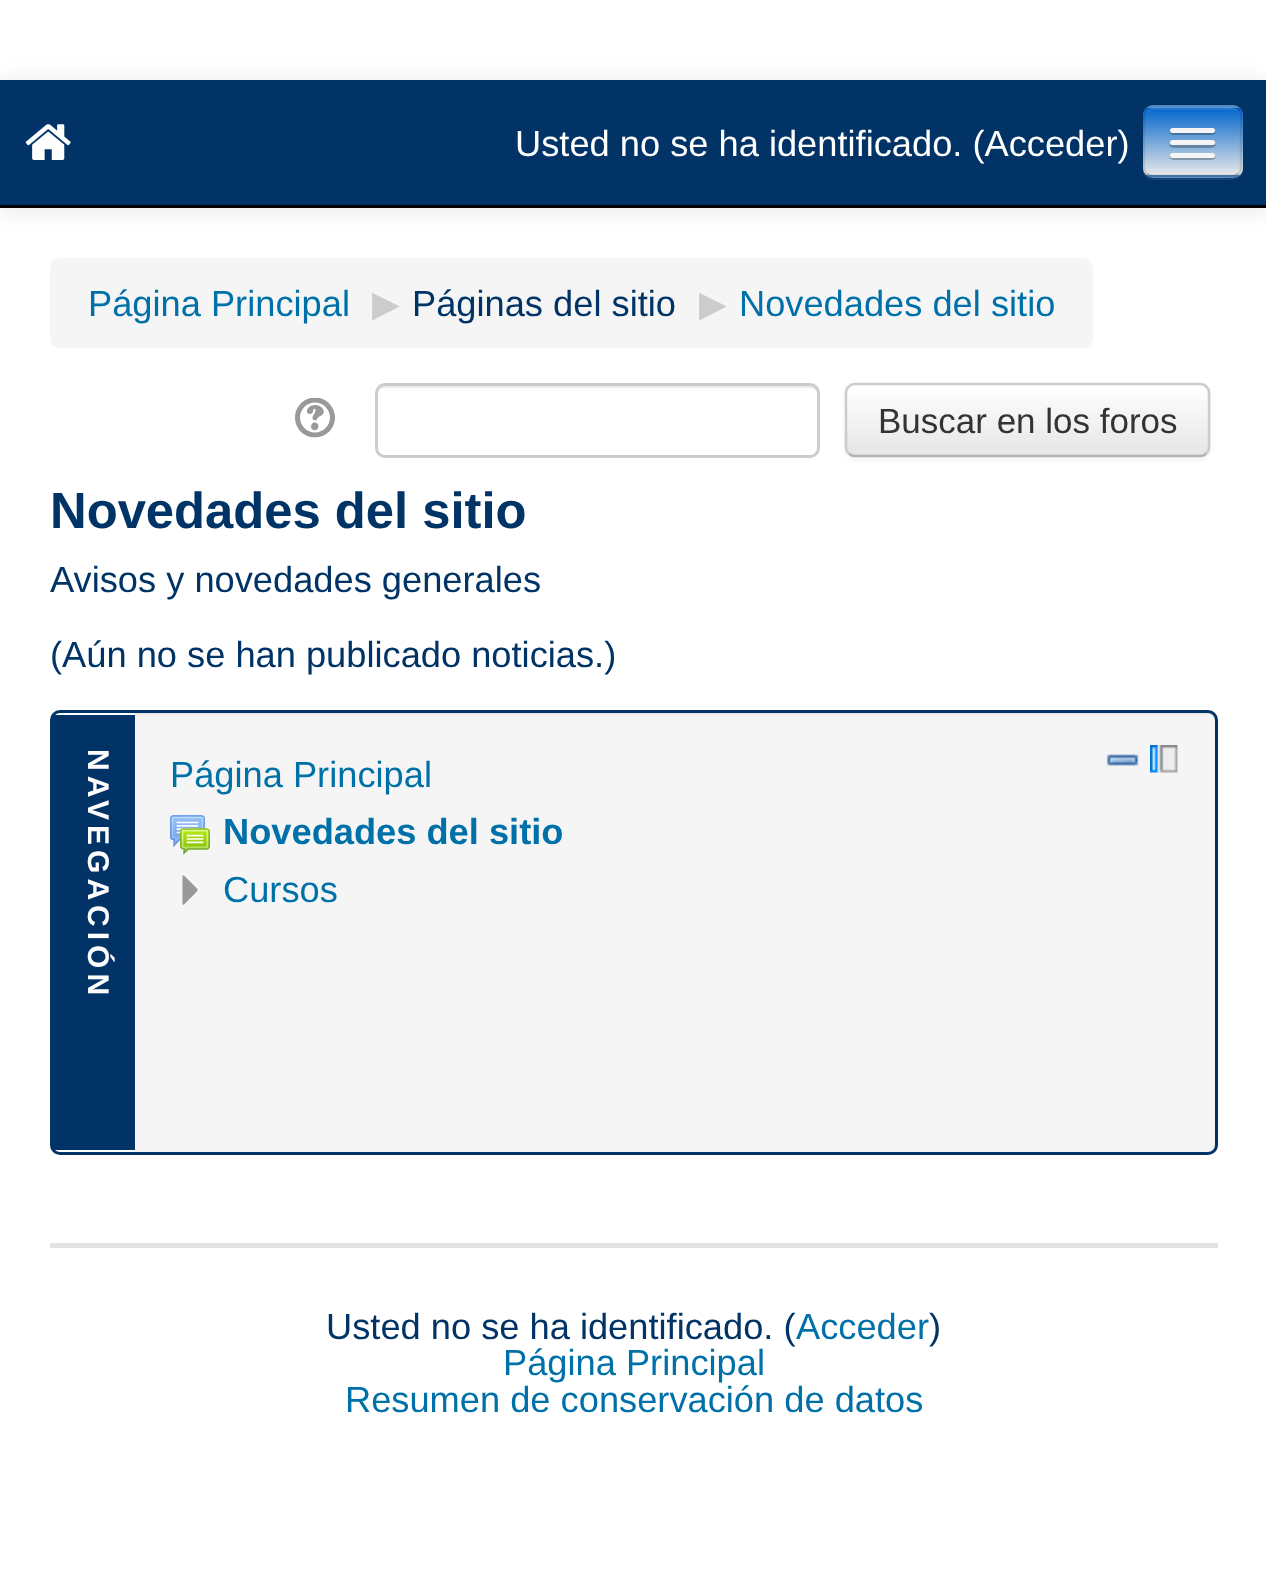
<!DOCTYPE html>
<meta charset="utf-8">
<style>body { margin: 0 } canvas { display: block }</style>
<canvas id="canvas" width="1266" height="1587"></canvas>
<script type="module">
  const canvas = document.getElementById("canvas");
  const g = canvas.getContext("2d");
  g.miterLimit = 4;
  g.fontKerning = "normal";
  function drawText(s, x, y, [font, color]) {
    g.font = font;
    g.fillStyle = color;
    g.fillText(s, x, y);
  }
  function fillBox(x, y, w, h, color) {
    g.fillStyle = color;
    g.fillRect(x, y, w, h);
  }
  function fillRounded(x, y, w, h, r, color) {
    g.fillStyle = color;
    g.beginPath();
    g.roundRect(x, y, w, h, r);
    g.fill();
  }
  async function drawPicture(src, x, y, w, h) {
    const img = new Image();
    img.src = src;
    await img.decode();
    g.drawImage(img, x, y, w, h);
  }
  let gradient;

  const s1 = ["36.25px Liberation Sans", "#FFFFFF"];
  const s2 = ["36.25px Liberation Sans", "#0070A8"];
  const s3 = ["36.25px DejaVu Sans", "#CCCCCC"];
  const s4 = ["36.25px Liberation Sans", "#003366"];
  const s5 = ["35px Liberation Sans", "#333333"];
  const s6 = ["bold 50.75px Liberation Sans", "#003366"];
  const s7 = ["bold 36.25px Liberation Sans", "#0070A8"];

  fillBox(0, 0, 1266, 1587, "#FFFFFF");
  g.fillStyle = "rgba(0, 0, 0, 0.1)";
  g.filter = "blur(12.5px)";
  g.beginPath();
  g.rect(0, 83, 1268, 127);
  g.fill();
  g.filter = "none";
  fillBox(0, 80, 1266, 125, "#013366");
  fillBox(0, 205, 1266, 3, "#000000");
  await drawPicture("pic1.png", 25, 124, 46, 36);
  drawText("Usted no se ha identificado. (Acceder)", 515, 156, s1);
  g.fillStyle = "#144271";
  g.beginPath();
  g.moveTo(1143, 171);
  g.bezierCurveTo(1143, 176, 1148, 180, 1153, 180);
  g.lineTo(1233, 180);
  g.bezierCurveTo(1239, 180, 1243, 176, 1243, 170);
  g.lineTo(1243, 118);
  g.lineTo(1242, 115);
  g.lineTo(1242, 170);
  g.lineTo(1241, 173);
  g.bezierCurveTo(1236, 180, 1225, 178, 1219, 178);
  g.lineTo(1166, 178);
  g.bezierCurveTo(1159, 178, 1146, 180, 1143, 171);
  g.closePath();
  g.fill();
  fillRounded(1143, 105, 100, 73, 10, "#5E9AD7");
  g.save();
  g.beginPath();
  g.roundRect(1143, 105, 100, 73, 10);
  g.clip();
  gradient = g.createLinearGradient(1193, 108, 1193, 175);
  gradient.addColorStop(0, "#0266CB");
  gradient.addColorStop(1, "#E8E8E8");
  g.fillStyle = gradient;
  g.fillRect(1143, 108, 100, 67);
  g.restore();
  g.fillStyle = "rgba(255, 255, 255, 0.1)";
  g.beginPath();
  g.moveTo(1152, 110);
  g.lineTo(1232, 110);
  g.bezierCurveTo(1237, 110, 1240, 113, 1240, 118);
  g.bezierCurveTo(1240, 105, 1229, 108, 1219, 108);
  g.lineTo(1166, 108);
  g.bezierCurveTo(1156, 108, 1145, 105, 1145, 118);
  g.bezierCurveTo(1145, 113, 1148, 110, 1152, 110);
  g.closePath();
  g.fill();
  g.beginPath();
  g.moveTo(1238.5, 173.5);
  g.bezierCurveTo(1237, 175.5, 1235, 176, 1232.5, 176);
  g.lineTo(1152.5, 176);
  g.bezierCurveTo(1150, 176, 1148, 175.5, 1146.5, 173.5);
  g.strokeStyle = "rgba(0, 0, 0, 0.25)";
  g.lineWidth = 2.5;
  g.stroke();
  g.beginPath();
  g.moveTo(1146.5, 173.5);
  g.bezierCurveTo(1144.5, 172, 1144, 170, 1144, 167.5);
  g.lineTo(1144, 115);
  g.bezierCurveTo(1144, 112.5, 1144.5, 110.5, 1146.5, 109);
  g.bezierCurveTo(1148, 107, 1150, 106, 1152.5, 106);
  g.lineTo(1232.5, 106);
  g.bezierCurveTo(1235, 106, 1237, 107, 1238.5, 109);
  g.bezierCurveTo(1240.5, 110.5, 1241, 112.5, 1241, 115);
  g.lineTo(1241, 167.5);
  g.bezierCurveTo(1241, 170, 1240.5, 172, 1238.5, 173.5);
  g.strokeStyle = "rgba(0, 0, 0, 0.1)";
  g.stroke();
  g.fillStyle = "rgba(0, 0, 0, 0.25)";
  g.beginPath();
  g.moveTo(1170, 131);
  g.bezierCurveTo(1167, 136, 1179, 135, 1179, 135);
  g.lineTo(1206, 135);
  g.bezierCurveTo(1206, 135, 1218, 136, 1215, 131);
  g.bezierCurveTo(1214, 132, 1213, 132, 1212, 132);
  g.lineTo(1172, 132);
  g.bezierCurveTo(1172, 132, 1171, 132, 1170, 131);
  g.closePath();
  g.fill();
  fillRounded(1170, 128, 45, 5, 2.5, "#F5F5F5");
  g.fillStyle = "rgba(0, 0, 0, 0.25)";
  g.beginPath();
  g.moveTo(1170, 144);
  g.bezierCurveTo(1167, 148, 1175, 148, 1179, 148);
  g.lineTo(1206, 148);
  g.bezierCurveTo(1210, 148, 1218, 148, 1215, 144);
  g.lineTo(1213, 145);
  g.lineTo(1172, 145);
  g.closePath();
  g.fill();
  fillRounded(1170, 140, 45, 5, 2.5, "#F5F5F5");
  g.fillStyle = "rgba(0, 0, 0, 0.25)";
  g.beginPath();
  g.moveTo(1170, 156);
  g.bezierCurveTo(1167, 161, 1179, 160, 1179, 160);
  g.lineTo(1206, 160);
  g.bezierCurveTo(1206, 160, 1218, 161, 1215, 156);
  g.bezierCurveTo(1214, 157, 1213, 158, 1212, 158);
  g.lineTo(1172, 158);
  g.bezierCurveTo(1172, 158, 1171, 157, 1170, 156);
  g.closePath();
  g.fill();
  fillRounded(1170, 153, 45, 5, 2.5, "#F5F5F5");
  fillRounded(50, 258, 1043, 90, 10, "#F5F5F5");
  drawText("Página Principal", 88, 316, s2);
  drawText("▶︎", 372, 316, s3);
  drawText("Páginas del sitio", 412, 316, s4);
  drawText("▶︎", 699, 316, s3);
  drawText("Novedades del sitio", 739, 316, s2);
  await drawPicture("pic2.png", 295, 398, 40, 40);
  g.fillStyle = "#ECECEC";
  g.beginPath();
  g.moveTo(385, 388);
  g.lineTo(810, 388);
  g.bezierCurveTo(814, 388, 818, 391, 818, 395);
  g.lineTo(818, 393);
  g.bezierCurveTo(818, 389, 814, 385, 810, 385);
  g.lineTo(386, 385);
  g.bezierCurveTo(382, 385, 378, 389, 378, 393);
  g.lineTo(378, 395);
  g.bezierCurveTo(378, 391, 381, 388, 385, 388);
  g.closePath();
  g.fill();
  g.beginPath();
  g.roundRect(376.5, 384.5, 442, 72, 8.5);
  g.strokeStyle = "#CCCCCC";
  g.lineWidth = 3;
  g.stroke();
  g.fillStyle = "rgba(0, 0, 0, 0.05)";
  g.filter = "blur(2.5px)";
  g.beginPath();
  g.roundRect(845, 385, 365, 75, 10);
  g.fill();
  g.filter = "none";
  fillRounded(845, 383, 365, 75, 10, "#F5F5F5");
  g.save();
  g.beginPath();
  g.roundRect(845, 383, 365, 75, 10);
  g.clip();
  gradient = g.createLinearGradient(1028, 385, 1028, 455);
  gradient.addColorStop(0, "#FFFFFF");
  gradient.addColorStop(1, "#E6E6E6");
  g.fillStyle = gradient;
  g.fillRect(845, 385, 365, 70);
  g.restore();
  g.beginPath();
  g.moveTo(1206, 453.5);
  g.bezierCurveTo(1204.5, 455.5, 1202.5, 456, 1200, 456);
  g.lineTo(855, 456);
  g.bezierCurveTo(852.5, 456, 850.5, 455.5, 849, 453.5);
  g.strokeStyle = "#B3B3B3";
  g.lineWidth = 2.5;
  g.stroke();
  g.beginPath();
  g.moveTo(849, 453.5);
  g.bezierCurveTo(847, 452, 846, 450, 846, 447.5);
  g.lineTo(846, 392.5);
  g.bezierCurveTo(846, 390, 847, 388, 849, 386.5);
  g.bezierCurveTo(850.5, 384.5, 852.5, 384, 855, 384);
  g.lineTo(1200, 384);
  g.bezierCurveTo(1202.5, 384, 1204.5, 384.5, 1206, 386.5);
  g.bezierCurveTo(1208, 388, 1209, 390, 1209, 392.5);
  g.lineTo(1209, 447.5);
  g.bezierCurveTo(1209, 450, 1208, 452, 1206, 453.5);
  g.strokeStyle = "#CCCCCC";
  g.stroke();
  drawText("Buscar en los foros", 878, 433, s5);
  drawText("Novedades del sitio", 50, 528, s6);
  drawText("Avisos y novedades generales", 50, 592, s4);
  drawText("(Aún no se han publicado noticias.)", 50, 667, s4);
  g.fillStyle = "#F5F5F5";
  g.beginPath();
  g.moveTo(135, 712);
  g.lineTo(1208, 712);
  g.bezierCurveTo(1212, 712, 1215, 716, 1215, 720);
  g.lineTo(1215, 1145);
  g.bezierCurveTo(1215, 1149, 1212, 1152, 1208, 1152);
  g.lineTo(135, 1152);
  g.closePath();
  g.fill();
  g.fillStyle = "#E9E9E9";
  g.beginPath();
  g.moveTo(135, 715);
  g.lineTo(1208, 715);
  g.bezierCurveTo(1212, 715, 1215, 718, 1215, 722);
  g.bezierCurveTo(1215, 717, 1213, 713, 1208, 712);
  g.lineTo(135, 712);
  g.closePath();
  g.fill();
  g.beginPath();
  g.roundRect(51.5, 711.5, 1165, 442, 8.5);
  g.strokeStyle = "#013366";
  g.lineWidth = 3;
  g.stroke();
  fillBox(53, 715, 82, 435, "#013366");
  g.letterSpacing = "5px";
  g.font = "bold 30px Liberation Sans";
  g.fillStyle = "#FFFFFF";
  g.save();
  g.translate(88, 749);
  g.rotate(90 * Math.PI / 180);
  g.fillText("NAVEGACIÓN", 0, 0);
  g.restore();
  await drawPicture("pic3.png", 1106, 754, 33, 12);
  await drawPicture("pic4.png", 1150, 745, 28, 28);
  g.letterSpacing = "0px";
  drawText("Página Principal", 170, 787, s2);
  await drawPicture("pic5.png", 170, 815, 40, 40);
  drawText("Novedades del sitio", 223, 844, s7);
  await drawPicture("pic6.png", 182, 875, 16, 30);
  drawText("Cursos", 223, 902, s2);
  fillBox(50, 1243, 1168, 5, "#E3E3E3");
  drawText("Usted no se ha identificado. (", 326, 1339, s4);
  drawText("Acceder", 796, 1339, s2);
  drawText(")", 929, 1339, s4);
  drawText("Página Principal", 503, 1375, s2);
  drawText("Resumen de conservación de datos", 345, 1412, s2);
</script>
